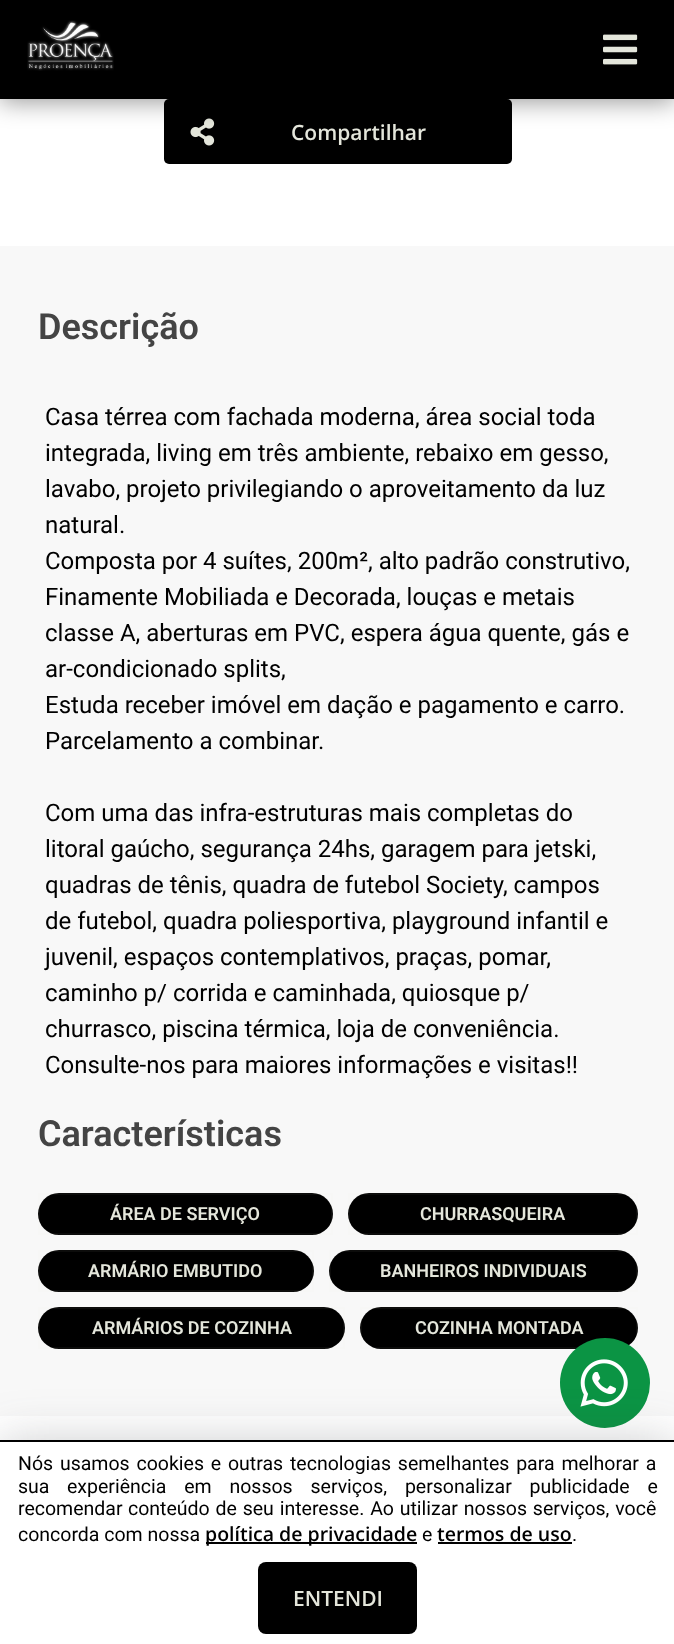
<!DOCTYPE html>
<meta charset="utf-8">
<style>body { margin: 0 } canvas { display: block }</style>
<canvas id="canvas" width="674" height="1644"></canvas>
<script type="module">
  const canvas = document.getElementById("canvas");
  const g = canvas.getContext("2d");
  g.miterLimit = 4;
  g.fontKerning = "normal";
  function drawText(s, x, y, [font, color]) {
    g.font = font;
    g.fillStyle = color;
    g.fillText(s, x, y);
  }
  function fillBox(x, y, w, h, color) {
    g.fillStyle = color;
    g.fillRect(x, y, w, h);
  }
  function fillRounded(x, y, w, h, r, color) {
    g.fillStyle = color;
    g.beginPath();
    g.roundRect(x, y, w, h, r);
    g.fill();
  }
  async function drawPicture(src, x, y, w, h) {
    const img = new Image();
    img.src = src;
    await img.decode();
    g.drawImage(img, x, y, w, h);
  }

  const s1 = ["600 21px Open Sans", "#E4E6DB"];
  const s2 = ["600 36px Roboto", "#444444"];
  const s3 = ["24px Roboto", "#000000"];
  const s4 = ["600 18px Roboto", "#E4E6DB"];
  const s5 = ["19.5px Roboto", "#000000"];
  const s6 = ["600 19.5px Open Sans", "#000000"];

  fillBox(0, 0, 674, 1644, "#FFFFFF");
  fillRounded(164, 99, 348, 65, 5, "#000000");
  await drawPicture("pic3.png", 190, 118, 25, 28);
  g.fillStyle = "rgba(0, 0, 0, 0.4)";
  g.filter = "blur(12px)";
  g.beginPath();
  g.rect(0, 3, 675, 99);
  g.fill();
  g.filter = "none";
  fillBox(0, 0, 674, 99, "#000000");
  await drawPicture("pic1.png", 27, 20, 87, 51);
  await drawPicture("pic2.png", 603, 34, 35, 31);
  drawText("Compartilhar", 291, 140, s1);
  fillBox(0, 246, 674, 1170, "#F8F8F8");
  drawText("Descrição", 38, 339, s2);
  drawText("Casa térrea com fachada moderna, área social toda", 45, 425, s3);
  drawText("integrada, living em três ambiente, rebaixo em gesso,", 45, 461, s3);
  drawText("lavabo, projeto privilegiando o aproveitamento da luz", 45, 497, s3);
  drawText("natural.", 45, 533, s3);
  drawText("Composta por 4 suítes, 200m², alto padrão construtivo,", 45, 569, s3);
  drawText("Finamente Mobiliada e Decorada, louças e metais", 45, 605, s3);
  drawText("classe A, aberturas em PVC, espera água quente, gás e", 45, 641, s3);
  drawText("ar-condicionado splits,", 45, 677, s3);
  drawText("Estuda receber imóvel em dação e pagamento e carro.", 45, 713, s3);
  drawText("Parcelamento a combinar.", 45, 749, s3);
  drawText("Com uma das infra-estruturas mais completas do", 45, 821, s3);
  drawText("litoral gaúcho, segurança 24hs, garagem para jetski,", 45, 857, s3);
  drawText("quadras de tênis, quadra de futebol Society, campos", 45, 893, s3);
  drawText("de futebol, quadra poliesportiva, playground infantil e", 45, 929, s3);
  drawText("juvenil, espaços contemplativos, praças, pomar,", 45, 965, s3);
  drawText("caminho p/ corrida e caminhada, quiosque p/", 45, 1001, s3);
  drawText("churrasco, piscina térmica, loja de conveniência.", 45, 1037, s3);
  drawText("Consulte-nos para maiores informações e visitas!!", 45, 1073, s3);
  drawText("Características", 38, 1146, s2);
  fillRounded(38, 1193, 295, 42, 21, "#000000");
  g.strokeStyle = "rgba(228, 230, 219, 0.05)";
  g.lineWidth = 2;
  g.strokeRect(39, 1194, 293, 40);
  drawText("ÁREA DE SERVIÇO", 110, 1220, s4);
  fillRounded(348, 1193, 290, 42, 21, "#000000");
  g.strokeRect(349, 1194, 288, 40);
  drawText("CHURRASQUEIRA", 420, 1220, s4);
  fillRounded(38, 1250, 276, 42, 21, "#000000");
  g.strokeRect(39, 1251, 274, 40);
  drawText("ARMÁRIO EMBUTIDO", 88, 1277, s4);
  fillRounded(329, 1250, 309, 42, 21, "#000000");
  g.strokeRect(330, 1251, 307, 40);
  drawText("BANHEIROS INDIVIDUAIS", 380, 1277, s4);
  fillRounded(38, 1307, 307, 42, 21, "#000000");
  g.strokeRect(39, 1308, 305, 40);
  drawText("ARMÁRIOS DE COZINHA", 92, 1334, s4);
  fillRounded(360, 1307, 278, 42, 21, "#000000");
  g.strokeRect(361, 1308, 276, 40);
  drawText("COZINHA MONTADA", 415, 1334, s4);
  g.fillStyle = "#0B9444";
  g.beginPath();
  g.arc(605, 1383, 45, 0, Math.PI * 2);
  g.fill();
  await drawPicture("pic4.png", 580, 1359, 48, 48);
  g.fillStyle = "rgba(59, 64, 71, 0.3)";
  g.filter = "blur(25.5px)";
  g.beginPath();
  g.rect(0, 1445, 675, 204);
  g.fill();
  g.filter = "none";
  fillBox(0, 1442, 674, 202, "#FFFFFF");
  fillBox(0, 1440, 674, 2, "#000000");
  g.wordSpacing = "2px";
  drawText("Nós usamos cookies e outras tecnologias semelhantes para melhorar a", 18, 1470, s5);
  g.wordSpacing = "0px";
  drawText("sua", 18, 1493, s5);
  g.wordSpacing = "13px";
  drawText("experiência em nossos serviços, personalizar publicidade e", 67, 1493, s5);
  g.wordSpacing = "0px";
  drawText("recomendar", 18, 1515, s5);
  g.wordSpacing = "1px";
  drawText("conteúdo de seu interesse. Ao utilizar nossos serviços, você", 128, 1515, s5);
  g.wordSpacing = "0px";
  drawText("concorda com nossa", 18, 1541, s5);
  fillBox(206, 1542, 211, 2, "#000000");
  drawText("política de privacidade", 205, 1541, s6);
  drawText("e", 422, 1541, s5);
  drawText("termos de uso", 437, 1541, s6);
  fillBox(438, 1542, 134, 2, "#000000");
  drawText(".", 572, 1541, s5);
  fillRounded(258, 1562, 159, 72, 8, "#000000");
  drawText("ENTENDI", 293, 1606, s1);
</script>
